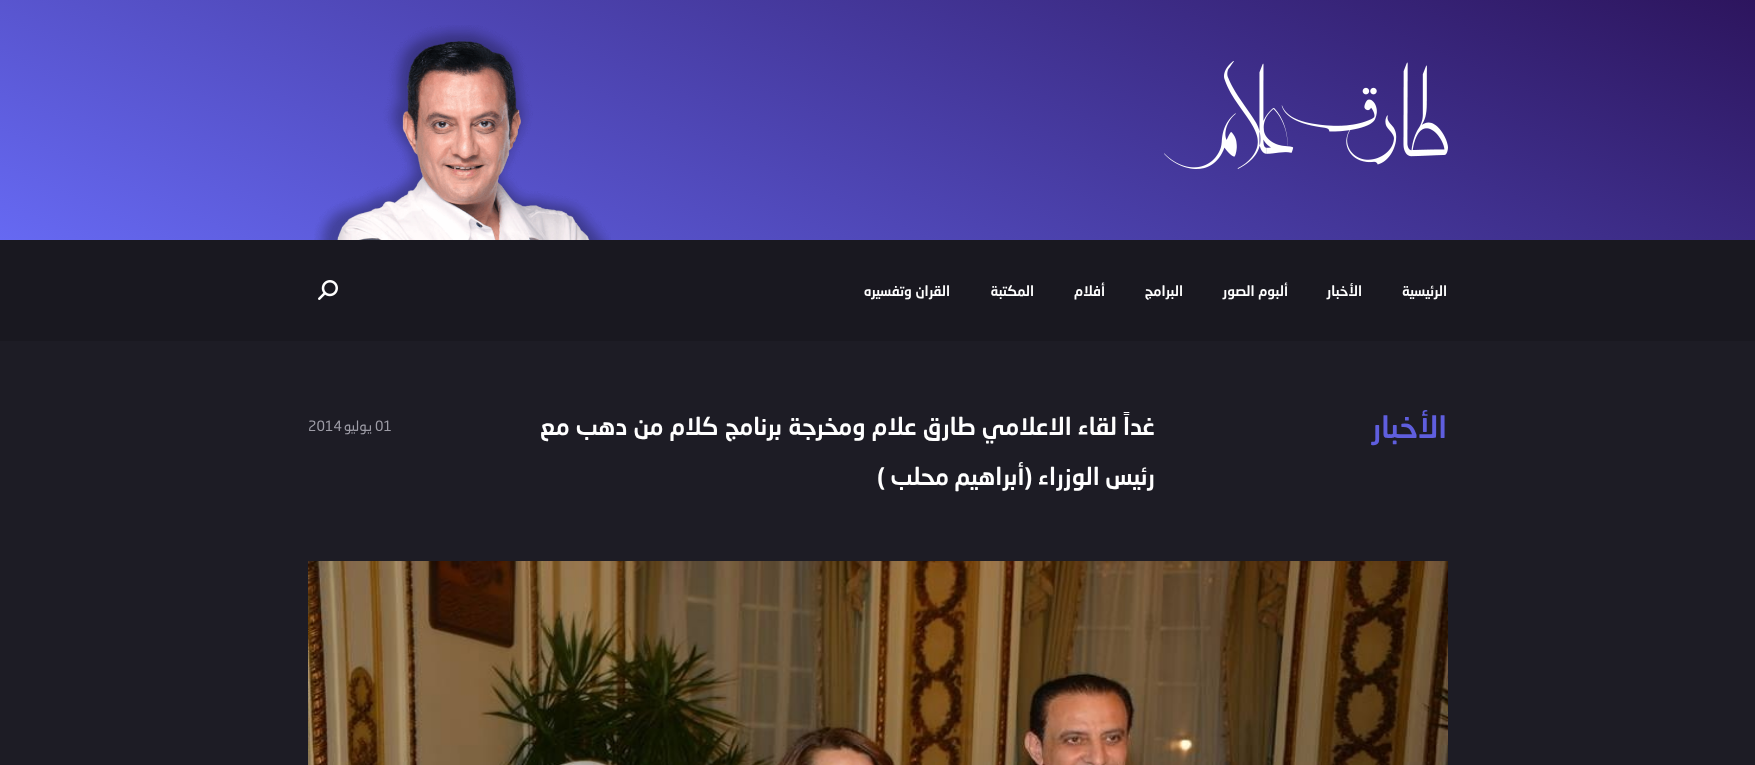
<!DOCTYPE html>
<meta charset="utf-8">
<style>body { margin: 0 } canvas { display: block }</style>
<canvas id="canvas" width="1755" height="765"></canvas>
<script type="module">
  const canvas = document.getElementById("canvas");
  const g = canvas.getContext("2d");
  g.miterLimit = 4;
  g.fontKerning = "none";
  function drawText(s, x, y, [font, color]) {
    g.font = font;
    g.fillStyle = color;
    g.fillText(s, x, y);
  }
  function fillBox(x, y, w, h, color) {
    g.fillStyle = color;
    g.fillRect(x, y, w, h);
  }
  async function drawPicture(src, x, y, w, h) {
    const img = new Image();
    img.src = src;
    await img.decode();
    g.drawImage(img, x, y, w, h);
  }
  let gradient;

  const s1 = ["500 14px 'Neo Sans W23'", "#FFFFFF"];
  const s2 = ["500 30px 'Neo Sans W23'", "#5F5EDE"];
  const s3 = ["500 24px 'Neo Sans W23'", "#FFFFFF"];
  const s4 = ["14px 'Neo Sans W23'", "#9E9DA7"];

  fillBox(0, 0, 1755, 765, "#1D1C25");
  gradient = g.createLinearGradient(688, 546, 1067, -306);
  gradient.addColorStop(0, "#6366ED");
  gradient.addColorStop(0, "#6669F2");
  gradient.addColorStop(1, "#2D155E");
  g.fillStyle = gradient;
  g.fillRect(0, 0, 1755, 240);
  await drawPicture("pic1.png", 1164, 61, 284, 108);
  await drawPicture("pic2.png", 314, 25, 297, 215);
  fillBox(0, 240, 1755, 101, "#191820");
  g.direction = "rtl";
  drawText("الرئيسية", 1447, 296, s1);
  drawText("الأخبار", 1362, 296, s1);
  drawText("ألبوم الصور", 1288, 296, s1);
  drawText("البرامج", 1183, 296, s1);
  drawText("أفلام", 1105, 296, s1);
  drawText("المكتبة", 1034, 296, s1);
  drawText("القران وتفسيره", 950, 296, s1);
  await drawPicture("pic3.png", 318, 280, 20, 20);
  drawText("الأخبار", 1447, 438, s2);
  drawText("غداً لقاء الاعلامي طارق علام ومخرجة برنامج كلام من دهب مع", 1155, 435, s3);
  g.wordSpacing = "-0.5px";
  drawText("رئيس الوزراء (أبراهيم محلب )", 1155, 485, s3);
  g.wordSpacing = "0px";
  g.direction = "ltr";
  drawText("01", 375, 431, s4);
  g.direction = "rtl";
  drawText("يوليو", 372, 431, s4);
  g.direction = "ltr";
  drawText("2014", 308, 431, s4);
  await drawPicture("pic4.png", 308, 561, 1140, 204);
</script>
